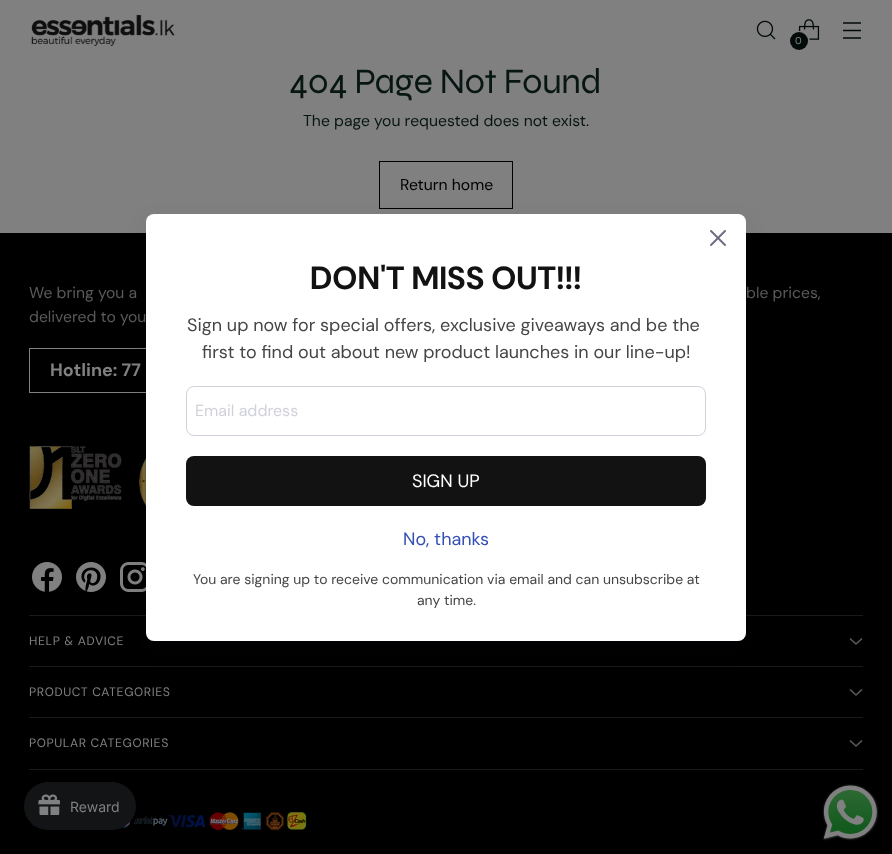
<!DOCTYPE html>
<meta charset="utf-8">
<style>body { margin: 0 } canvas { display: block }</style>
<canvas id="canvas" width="892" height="854"></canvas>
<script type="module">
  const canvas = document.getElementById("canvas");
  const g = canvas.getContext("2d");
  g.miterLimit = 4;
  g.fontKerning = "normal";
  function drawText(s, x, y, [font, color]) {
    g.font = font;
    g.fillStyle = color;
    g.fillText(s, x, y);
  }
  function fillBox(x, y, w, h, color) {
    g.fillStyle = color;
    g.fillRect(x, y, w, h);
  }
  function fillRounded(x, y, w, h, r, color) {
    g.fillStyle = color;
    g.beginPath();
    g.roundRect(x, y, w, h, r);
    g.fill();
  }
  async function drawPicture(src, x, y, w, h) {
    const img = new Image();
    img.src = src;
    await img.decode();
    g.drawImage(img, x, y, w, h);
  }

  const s1 = ["10px 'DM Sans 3'", "#808080"];
  const s2 = ["35.75px Syne", "#081613"];
  const s3 = ["15.75px DM Sans", "#081613"];
  const s4 = ["15.75px DM Sans", "#000000"];
  const s5 = ["15.75px DM Sans", "#5A5A5A"];
  const s6 = ["bold 18px DM Sans", "#808080"];
  const s7 = ["12.25px 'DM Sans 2'", "#808080"];
  const s8 = ["bold 32px 'DM Sans 2'", "#121212"];
  const s9 = ["18px 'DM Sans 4'", "#454545"];
  const s10 = ["16px 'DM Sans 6'", "#D1D1DB"];
  const s11 = ["18px 'DM Sans 4'", "#FFFFFF"];
  const s12 = ["18px 'DM Sans 4'", "#334FB4"];
  const s13 = ["14px 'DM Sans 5'", "#454545"];
  const s14 = ["14px Inter", "#808080"];

  fillBox(0, 0, 892, 854, "#808080");
  await drawPicture("pic1.png", 31, 14, 144, 32);
  await drawPicture("pic2.png", 756, 20, 20, 20);
  g.beginPath();
  g.moveTo(843, 30.5);
  g.lineTo(861, 30.5);
  g.moveTo(843, 23);
  g.lineTo(861, 23);
  g.moveTo(843, 38);
  g.lineTo(861, 38);
  g.strokeStyle = "#020B09";
  g.lineWidth = 1.3;
  g.stroke();
  await drawPicture("pic3.png", 798, 19, 22, 21);
  g.beginPath();
  g.arc(799.5, 41.5, 9.5, 0, Math.PI * 2);
  g.strokeStyle = "#808080";
  g.lineWidth = 2;
  g.stroke();
  g.fillStyle = "#020B09";
  g.beginPath();
  g.arc(799, 41, 9, 0, Math.PI * 2);
  g.fill();
  drawText("0", 795, 44, s1);
  g.letterSpacing = "-0.4px";
  drawText("404 Page Not Found", 289, 93, s2);
  g.letterSpacing = "0px";
  drawText("The page you requested does not exist.", 303, 126, s3);
  g.strokeStyle = "#000000";
  g.lineWidth = 1;
  g.strokeRect(379.5, 161.5, 133, 47);
  drawText("Return home", 400, 190, s4);
  fillBox(0, 233, 892, 621, "#000000");
  fillBox(29, 615, 834, 1, "#1A1A1A");
  drawText("We bring you a", 29, 298, s5);
  drawText("ble prices,", 746, 298, s5);
  drawText("delivered to you", 29, 322, s5);
  g.strokeStyle = "#808080";
  g.strokeRect(29.5, 348.5, 224, 44);
  drawText("Hotline: 77", 50, 376, s6);
  await drawPicture("pic4.png", 29, 445, 117, 64);
  await drawPicture("pic5.png", 32, 562, 30, 30);
  await drawPicture("pic6.png", 76, 562, 30, 30);
  await drawPicture("pic7.png", 120, 562, 26, 30);
  fillBox(29, 666, 834, 1, "#1A1A1A");
  g.letterSpacing = "0.6px";
  drawText("HELP & ADVICE", 29, 645, s7);
  g.beginPath();
  g.moveTo(850, 638.5);
  g.lineTo(856, 644);
  g.lineTo(862, 638.5);
  g.moveTo(850, 689.5);
  g.lineTo(856, 695);
  g.lineTo(862, 689.5);
  g.strokeStyle = "#5A5A5A";
  g.lineWidth = 1.6;
  g.stroke();
  fillBox(29, 717, 834, 1, "#1A1A1A");
  drawText("PRODUCT CATEGORIES", 29, 696, s7);
  fillBox(29, 769, 834, 1, "#1A1A1A");
  drawText("POPULAR CATEGORIES", 29, 747, s7);
  g.beginPath();
  g.moveTo(850, 740.5);
  g.lineTo(856, 746);
  g.lineTo(862, 740.5);
  g.stroke();
  await drawPicture("pic8.png", 32, 812, 275, 19);
  g.fillStyle = "rgba(18, 17, 39, 0.1)";
  g.filter = "blur(10px)";
  g.beginPath();
  g.roundRect(146, 222, 600, 427, 8);
  g.fill();
  g.filter = "none";
  fillRounded(146, 214, 600, 427, 8, "#FFFFFF");
  await drawPicture("pic9.png", 710, 230, 16, 16);
  g.letterSpacing = "0px";
  drawText("DON'T MISS OUT!!!", 310, 289, s8);
  drawText("Sign up now for special offers, exclusive giveaways and be the", 187, 331, s9);
  drawText("first to find out about new product launches in our line-up!", 202, 358, s9);
  g.beginPath();
  g.roundRect(186.5, 386.5, 519, 49, 7.5);
  g.strokeStyle = "#D1D1DB";
  g.lineWidth = 1;
  g.stroke();
  drawText("Email address", 195, 416, s10);
  fillRounded(186, 456, 520, 50, 8, "#121212");
  drawText("SIGN UP", 412, 487, s11);
  drawText("No, thanks", 403, 545, s12);
  drawText("You are signing up to receive communication via email and can unsubscribe at", 193, 584, s13);
  drawText("any time.", 417, 605, s13);
  g.fillStyle = "rgba(0, 0, 0, 0.25)";
  g.filter = "blur(6px)";
  g.beginPath();
  g.roundRect(24, 788, 112, 48, 24);
  g.fill();
  g.filter = "none";
  fillRounded(24, 782, 112, 48, 24, "#131416");
  await drawPicture("pic10.png", 38, 794, 22, 21);
  drawText("Reward", 70, 812, s14);
  await drawPicture("pic11.png", 822, 784, 57, 57);
</script>
